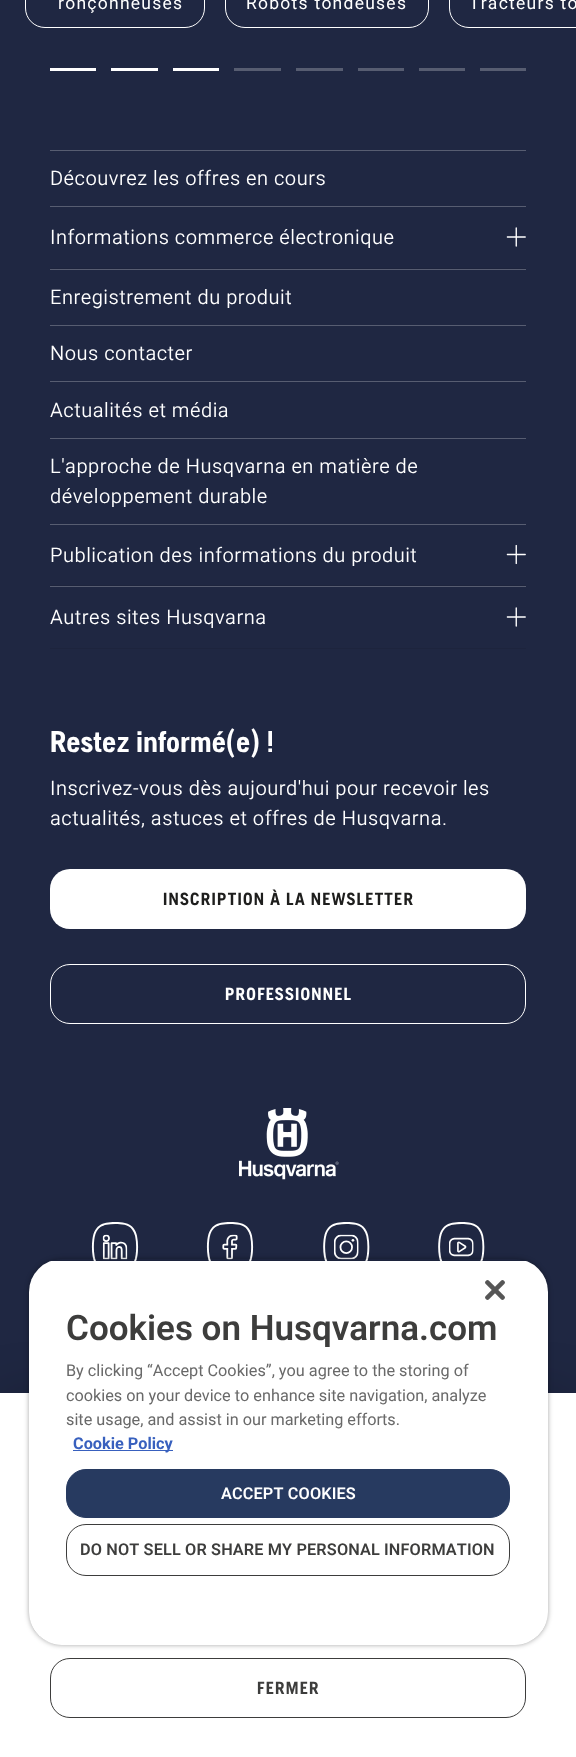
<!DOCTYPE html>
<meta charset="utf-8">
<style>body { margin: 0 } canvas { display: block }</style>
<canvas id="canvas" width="576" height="1757"></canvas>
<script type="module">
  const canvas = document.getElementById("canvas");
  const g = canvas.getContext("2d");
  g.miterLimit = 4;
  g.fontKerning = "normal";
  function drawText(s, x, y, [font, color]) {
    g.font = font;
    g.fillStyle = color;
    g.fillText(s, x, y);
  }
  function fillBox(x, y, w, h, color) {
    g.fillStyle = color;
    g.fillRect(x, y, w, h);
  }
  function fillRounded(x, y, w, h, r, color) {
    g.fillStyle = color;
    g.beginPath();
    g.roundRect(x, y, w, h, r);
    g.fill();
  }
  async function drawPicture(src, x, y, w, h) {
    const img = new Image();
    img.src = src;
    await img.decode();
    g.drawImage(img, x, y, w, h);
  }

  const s1 = ["17.5px Roboto", "#FFFFFF"];
  const s2 = ["300 20px Roboto", "#FFFFFF"];
  const s3 = ["bold 30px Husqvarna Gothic", "#FFFFFF"];
  const s4 = ["bold 17.5px Husqvarna Gothic", "#1E1E1D"];
  const s5 = ["bold 17.5px Husqvarna Gothic", "#FFFFFF"];
  const s6 = ["bold 17.5px Husqvarna Gothic", "#3D3D3C"];
  const s7 = ["600 35px Roboto", "#3D3D3C"];
  const s8 = ["16.25px Roboto", "#696969"];
  const s9 = ["bold 16.25px Roboto", "#3860BE"];
  const s10 = ["600 16.25px Roboto", "#FFFFFF"];
  const s11 = ["600 16.25px Roboto", "#3D3D3C"];

  fillBox(0, 0, 576, 1757, "#1F2742");
  g.beginPath();
  g.roundRect(25.5, -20.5, 179, 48, 19.5);
  g.strokeStyle = "#FFFFFF";
  g.stroke();
  g.letterSpacing = "1.25px";
  drawText("ronçonneuses", 58, 9, s1);
  g.beginPath();
  g.roundRect(225.5, -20.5, 203, 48, 19.5);
  g.stroke();
  drawText("Robots tondeuses", 246, 9, s1);
  g.beginPath();
  g.roundRect(449.5, -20.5, 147, 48, 19.5);
  g.stroke();
  drawText("Tracteurs to", 469, 9, s1);
  fillBox(50, 68, 46, 3, "#FFFFFF");
  fillBox(111, 68, 47, 3, "#FFFFFF");
  fillBox(173, 68, 46, 3, "#FFFFFF");
  fillBox(234, 68, 47, 3, "#575D71");
  fillBox(296, 68, 47, 3, "#575D71");
  fillBox(358, 68, 46, 3, "#575D71");
  fillBox(419, 68, 46, 3, "#575D71");
  fillBox(480, 68, 46, 3, "#575D71");
  fillBox(50, 150, 476, 1, "#575D71");
  g.letterSpacing = "0.5px";
  drawText("Découvrez les offres en cours", 50, 185, s2);
  fillBox(50, 206, 476, 1, "#575D71");
  fillBox(50, 268, 476, 1, "#1D243D");
  drawText("Informations commerce électronique", 50, 244, s2);
  await drawPicture("pic1.png", 506, 227, 20, 20);
  fillBox(50, 269, 476, 1, "#575D71");
  drawText("Enregistrement du produit", 50, 304, s2);
  fillBox(50, 325, 476, 1, "#575D71");
  drawText("Nous contacter", 50, 360, s2);
  fillBox(50, 381, 476, 1, "#575D71");
  drawText("Actualités et média", 50, 417, s2);
  fillBox(50, 438, 476, 1, "#575D71");
  drawText("L'approche de Husqvarna en matière de", 50, 473, s2);
  drawText("développement durable", 50, 503, s2);
  fillBox(50, 524, 476, 1, "#575D71");
  fillBox(50, 585, 476, 1, "#1D243D");
  drawText("Publication des informations du produit", 50, 562, s2);
  await drawPicture("pic2.png", 506, 544, 20, 21);
  fillBox(50, 586, 476, 1, "#575D71");
  fillBox(50, 648, 476, 1, "#1D243D");
  drawText("Autres sites Husqvarna", 50, 624, s2);
  await drawPicture("pic1.png", 506, 607, 20, 20);
  g.letterSpacing = "0px";
  drawText("Restez informé(e) !", 50, 752, s3);
  g.letterSpacing = "0.5px";
  drawText("Inscrivez-vous dès aujourd'hui pour recevoir les", 50, 795, s2);
  drawText("actualités, astuces et offres de Husqvarna.", 50, 825, s2);
  fillRounded(50, 869, 476, 60, 20, "#FFFFFF");
  g.letterSpacing = "1.25px";
  drawText("INSCRIPTION À LA NEWSLETTER", 163, 905, s4);
  g.beginPath();
  g.roundRect(50.5, 964.5, 475, 59, 19.5);
  g.stroke();
  drawText("PROFESSIONNEL", 225, 1000, s5);
  await drawPicture("pic3.png", 239, 1108, 100, 72);
  await drawPicture("pic4.png", 91, 1222, 48, 39);
  await drawPicture("pic5.png", 102, 1234, 26, 26);
  await drawPicture("pic4.png", 206, 1222, 48, 39);
  await drawPicture("pic6.png", 222, 1234, 16, 26);
  await drawPicture("pic7.png", 323, 1222, 47, 39);
  await drawPicture("pic8.png", 334, 1234, 25, 26);
  await drawPicture("pic7.png", 438, 1222, 47, 39);
  await drawPicture("pic9.png", 449, 1237, 25, 20);
  g.fillStyle = "rgba(0, 0, 0, 0.2)";
  g.filter = "blur(25px)";
  g.beginPath();
  g.rect(0, 1393, 576, 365);
  g.fill();
  g.filter = "none";
  fillBox(0, 1393, 576, 364, "#FFFFFF");
  g.beginPath();
  g.roundRect(50.5, 1658.5, 475, 59, 19.5);
  g.strokeStyle = "#3D3D3C";
  g.stroke();
  drawText("FERMER", 257, 1694, s6);
  g.save();
  g.beginPath();
  g.moveTo(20, 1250);
  g.lineTo(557, 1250);
  g.lineTo(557, 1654);
  g.lineTo(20, 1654);
  g.closePath();
  g.moveTo(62, 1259);
  g.lineTo(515, 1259);
  g.bezierCurveTo(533, 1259, 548, 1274, 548, 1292);
  g.lineTo(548, 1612);
  g.bezierCurveTo(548, 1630, 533, 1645, 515, 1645);
  g.lineTo(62, 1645);
  g.bezierCurveTo(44, 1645, 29, 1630, 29, 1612);
  g.lineTo(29, 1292);
  g.bezierCurveTo(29, 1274, 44, 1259, 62, 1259);
  g.closePath();
  g.clip("evenodd");
  g.fillStyle = "rgba(0, 0, 0, 0.35)";
  g.filter = "blur(2.5px)";
  g.beginPath();
  g.roundRect(29, 1259, 519, 386, 33);
  g.fill();
  g.filter = "none";
  g.restore();
  g.save();
  g.beginPath();
  g.roundRect(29, 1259, 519, 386, 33);
  g.clip();
  g.fillStyle = "rgba(0, 0, 0, 0.2)";
  g.filter = "blur(2.5px)";
  g.beginPath();
  g.rect(29, 1261, 519, 384);
  g.fill();
  g.filter = "none";
  g.restore();
  g.save();
  g.beginPath();
  g.roundRect(29, 1259, 519, 386, 33);
  g.clip();
  g.fillStyle = "#FFFFFF";
  g.beginPath();
  g.roundRect(29, 1261, 519, 384, [0, 0, 33, 33]);
  g.fill();
  g.restore();
  await drawPicture("pic10.png", 485, 1280, 20, 20);
  g.letterSpacing = "0px";
  drawText("Cookies on Husqvarna.com", 66, 1340, s7);
  drawText("By clicking “Accept Cookies”, you agree to the storing of", 66, 1376, s8);
  drawText("cookies on your device to enhance site navigation, analyze", 66, 1401, s8);
  drawText("site usage, and assist in our marketing efforts.", 66, 1425, s8);
  fillBox(73, 1450, 100, 1, "#3860BE");
  drawText("Cookie Policy", 73, 1449, s9);
  g.fillStyle = "#273A60";
  g.beginPath();
  g.roundRect(66.5, 1469.5, 443, 48, 19.5);
  g.fill();
  g.strokeStyle = "#273A60";
  g.stroke();
  g.letterSpacing = "0.15px";
  drawText("ACCEPT COOKIES", 221, 1499, s10);
  g.beginPath();
  g.roundRect(66.5, 1524.5, 443, 51, 19.5);
  g.strokeStyle = "#3D3D3C";
  g.stroke();
  drawText("DO NOT SELL OR SHARE MY PERSONAL INFORMATION", 80, 1555, s11);
</script>
